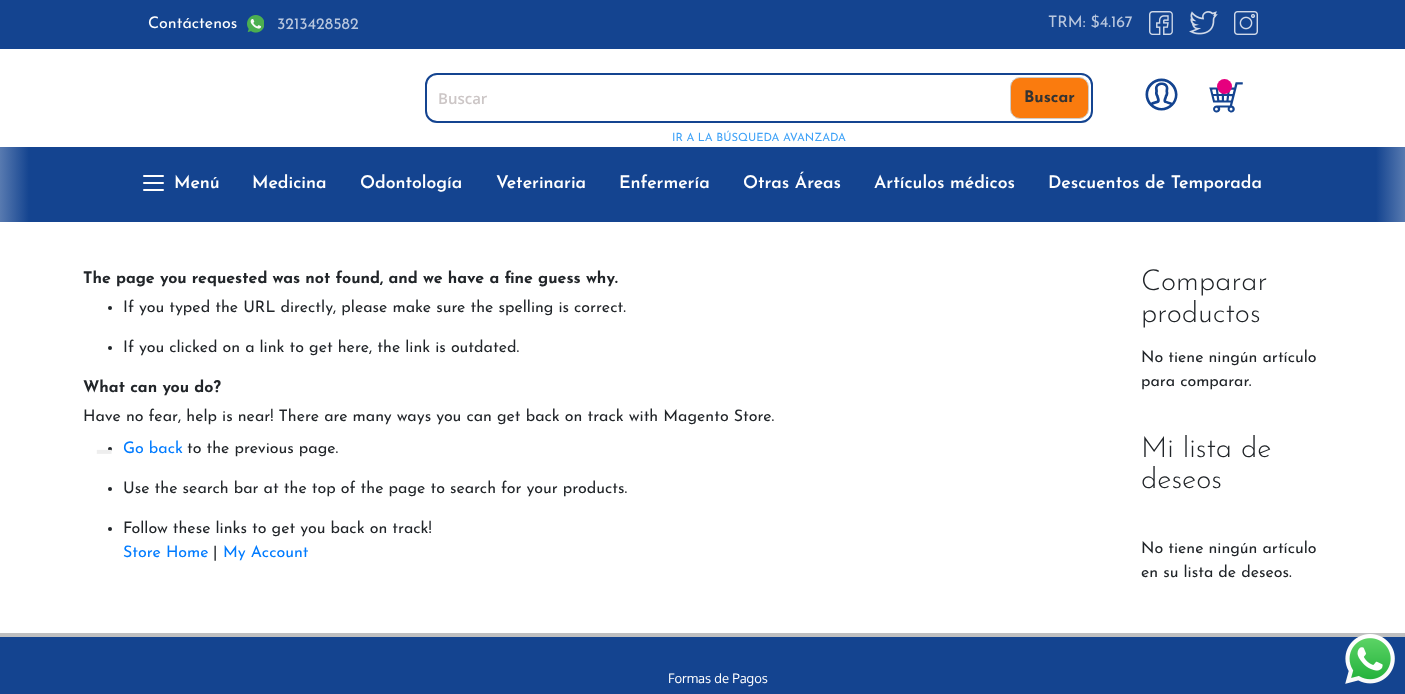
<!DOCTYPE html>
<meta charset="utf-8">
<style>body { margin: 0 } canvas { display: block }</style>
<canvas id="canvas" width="1405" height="694"></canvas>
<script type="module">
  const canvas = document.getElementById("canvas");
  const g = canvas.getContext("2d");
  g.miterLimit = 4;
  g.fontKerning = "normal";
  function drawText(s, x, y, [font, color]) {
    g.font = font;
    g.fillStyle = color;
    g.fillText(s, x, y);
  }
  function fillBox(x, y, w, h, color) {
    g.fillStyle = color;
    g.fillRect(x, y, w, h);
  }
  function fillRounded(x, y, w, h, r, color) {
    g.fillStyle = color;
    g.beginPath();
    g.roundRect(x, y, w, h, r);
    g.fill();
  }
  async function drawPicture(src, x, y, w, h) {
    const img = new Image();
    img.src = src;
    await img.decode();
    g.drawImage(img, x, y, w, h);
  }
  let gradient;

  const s1 = ["16px Josefin Sans", "#FFFFFF"];
  const s2 = ["16px Josefin Sans", "#B9C7DE"];
  const s3 = ["600 15px Open Sans", "#CCC6C6"];
  const s4 = ["bold 16px Josefin Sans", "#333333"];
  const s5 = ["11.25px Josefin Sans", "#3FA2F7"];
  const s6 = ["48px Josefin Sans", "#EEEEEE"];
  const s7 = ["100 17.6px Josefin Sans", "#FFFFFF"];
  const s8 = ["bold 16px Josefin Sans", "#212529"];
  const s9 = ["16px Josefin Sans", "#212529"];
  const s10 = ["16px Josefin Sans", "#007BFF"];
  const s11 = ["300 29px Josefin Sans", "#212529"];
  const s12 = ["13px Oxygen", "#FFFFFF"];

  fillBox(0, 0, 1405, 694, "#FFFFFF");
  fillBox(0, 0, 1405, 49, "#144490");
  drawText("Contáctenos", 148, 28, s1);
  await drawPicture("pic1.png", 247, 15, 17, 18);
  drawText("3213428582", 277, 29, s2);
  drawText("TRM: $4.167", 1048, 27, s2);
  await drawPicture("pic2.png", 1149, 11, 24, 24);
  await drawPicture("pic3.png", 1189, 11, 29, 24);
  await drawPicture("pic4.png", 1234, 11, 24, 24);
  g.beginPath();
  g.roundRect(426, 74, 666, 48, 11);
  g.strokeStyle = "#144490";
  g.lineWidth = 2;
  g.stroke();
  drawText("Buscar", 438, 104, s3);
  g.fillStyle = "#FA7B0E";
  g.beginPath();
  g.roundRect(1010.5, 77.5, 78, 41, 9.5);
  g.fill();
  g.strokeStyle = "#CDCDCD";
  g.lineWidth = 1;
  g.stroke();
  drawText("Buscar", 1024, 102, s4);
  drawText("IR A LA BÚSQUEDA AVANZADA", 672, 141, s5);
  await drawPicture("pic5.png", 1145, 78, 33, 33);
  await drawPicture("pic6.png", 1209, 82, 34, 31);
  g.fillStyle = "#E6007E";
  g.beginPath();
  g.arc(1224.5, 86.5, 7.5, 0, Math.PI * 2);
  g.fill();
  g.fillStyle = "#212529";
  g.beginPath();
  g.arc(110, 449, 2, 0, Math.PI * 2);
  g.fill();
  drawText("–", 92, 462, s6);
  fillBox(100, 147, 1205, 75, "#144490");
  gradient = g.createLinearGradient(0, 185, 100, 185);
  gradient.addColorStop(0, "#587AB0");
  gradient.addColorStop(0.29, "#144490");
  g.fillStyle = gradient;
  g.fillRect(0, 147, 100, 75);
  fillRounded(143, 175, 21, 2, 1, "#FFFFFF");
  fillRounded(143, 182, 21, 2, 1, "#FFFFFF");
  fillRounded(143, 189, 21, 2, 1, "#FFFFFF");
  drawText("Menú", 174, 188, s7);
  drawText("Medicina", 252, 188, s7);
  drawText("Odontología", 360, 188, s7);
  drawText("Veterinaria", 496, 188, s7);
  drawText("Enfermería", 619, 188, s7);
  drawText("Otras Áreas", 743, 188, s7);
  drawText("Artículos médicos", 874, 188, s7);
  drawText("Descuentos de Temporada", 1048, 188, s7);
  gradient = g.createLinearGradient(1305, 185, 1405, 185);
  gradient.addColorStop(0.71, "#144490");
  gradient.addColorStop(1, "#587AB0");
  g.fillStyle = gradient;
  g.fillRect(1305, 147, 100, 75);
  drawText("The page you requested was not found, and we have a fine guess why.", 83, 283, s8);
  g.beginPath();
  g.arc(110, 308, 2, 0, Math.PI * 2);
  g.fill();
  drawText("If you typed the URL directly, please make sure the spelling is correct.", 123, 312, s9);
  g.beginPath();
  g.arc(110, 348, 2, 0, Math.PI * 2);
  g.fill();
  drawText("If you clicked on a link to get here, the link is outdated.", 123, 352, s9);
  drawText("What can you do?", 83, 392, s8);
  drawText("Have no fear, help is near! There are many ways you can get back on track with Magento Store.", 83, 421, s9);
  drawText("Go back", 123, 453, s10);
  drawText("to the previous page.", 187, 453, s9);
  g.beginPath();
  g.arc(110, 489, 2, 0, Math.PI * 2);
  g.fill();
  drawText("Use the search bar at the top of the page to search for your products.", 123, 493, s9);
  g.beginPath();
  g.arc(110, 529, 2, 0, Math.PI * 2);
  g.fill();
  drawText("Follow these links to get you back on track!", 123, 533, s9);
  drawText("Store Home", 123, 557, s10);
  drawText("|", 213, 557, s9);
  drawText("My Account", 223, 557, s10);
  drawText("Comparar", 1141, 290, s11);
  drawText("productos", 1141, 322, s11);
  drawText("No tiene ningún artículo", 1141, 362, s9);
  drawText("para comparar.", 1141, 386, s9);
  drawText("Mi lista de", 1141, 457, s11);
  drawText("deseos", 1141, 488, s11);
  drawText("No tiene ningún artículo", 1141, 553, s9);
  drawText("en su lista de deseos.", 1141, 577, s9);
  fillBox(0, 637, 1405, 57, "#144490");
  fillBox(0, 633, 1405, 4, "#BEBFC0");
  drawText("Formas de Pagos", 668, 683, s12);
  await drawPicture("pic7.png", 1345, 634, 50, 50);
</script>
